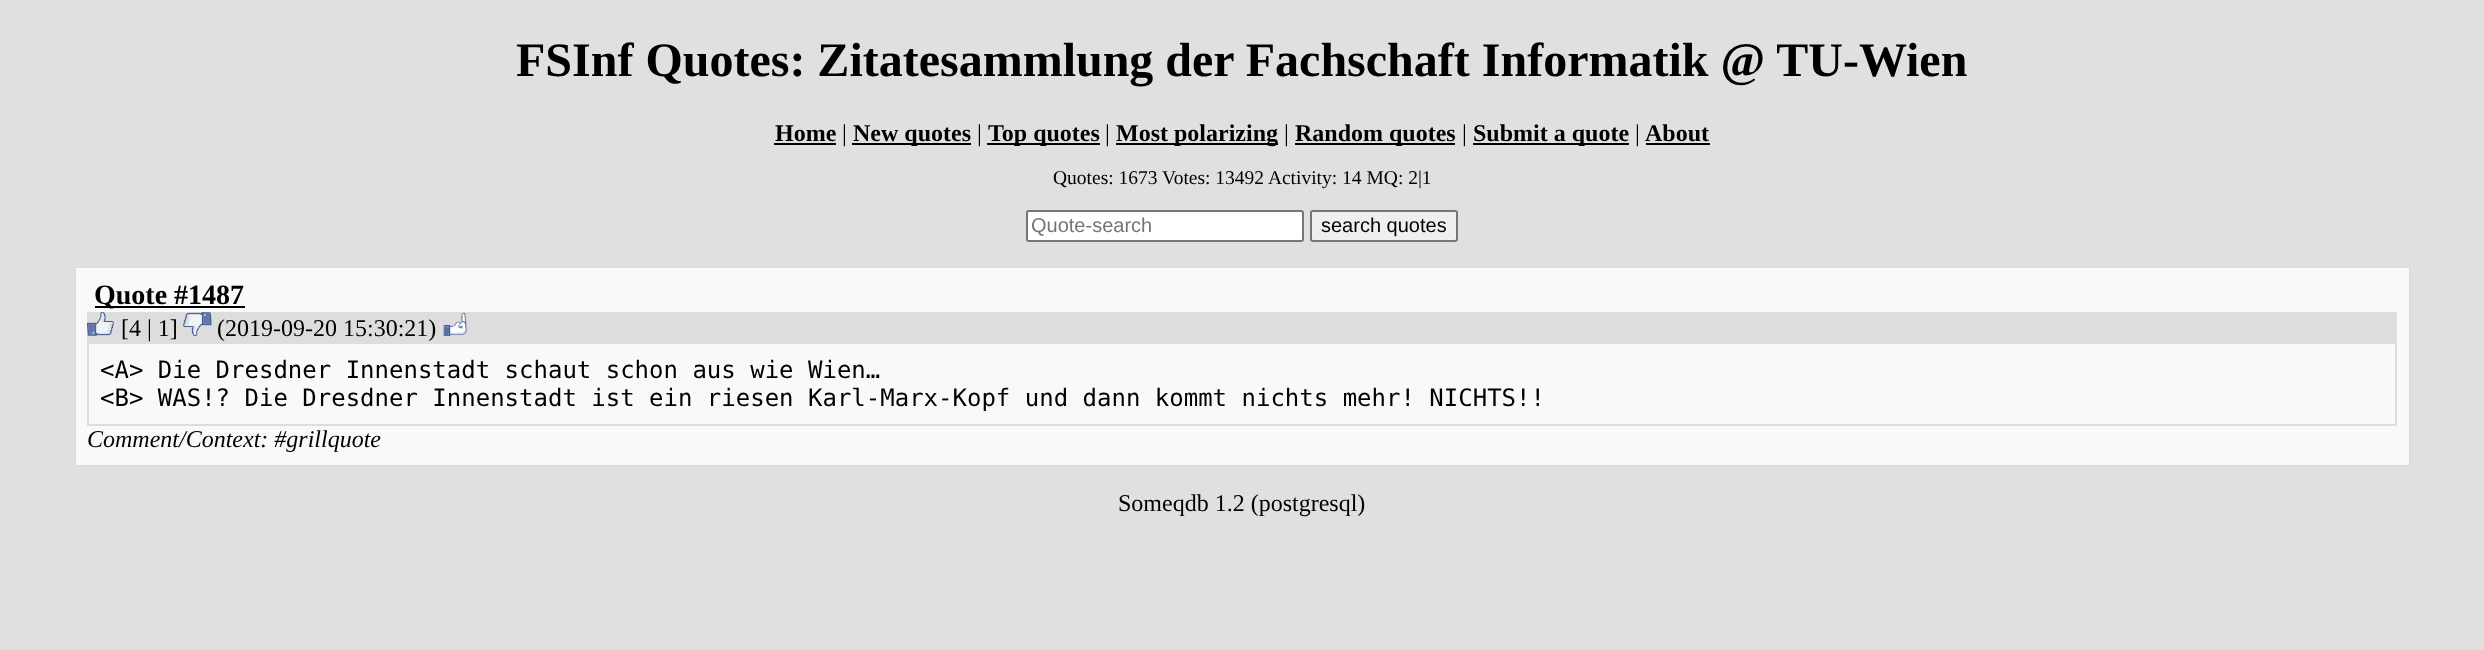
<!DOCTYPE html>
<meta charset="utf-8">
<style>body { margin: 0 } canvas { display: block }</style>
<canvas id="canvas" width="2484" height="650"></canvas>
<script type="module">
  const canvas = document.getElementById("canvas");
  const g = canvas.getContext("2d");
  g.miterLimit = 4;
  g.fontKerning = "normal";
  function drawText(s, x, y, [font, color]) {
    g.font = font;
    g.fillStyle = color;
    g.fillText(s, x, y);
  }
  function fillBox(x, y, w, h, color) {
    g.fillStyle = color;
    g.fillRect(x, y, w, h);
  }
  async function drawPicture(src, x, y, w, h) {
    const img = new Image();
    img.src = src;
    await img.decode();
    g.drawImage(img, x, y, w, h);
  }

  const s1 = ["bold 48px Liberation Serif", "#000000"];
  const s2 = ["bold 24px Liberation Serif", "#000000"];
  const s3 = ["24px Liberation Serif", "#000000"];
  const s4 = ["19.5px Liberation Serif", "#000000"];
  const s5 = ["20px Liberation Sans", "#757575"];
  const s6 = ["20px Liberation Sans", "#000000"];
  const s7 = ["bold 28px Liberation Serif", "#000000"];
  const s8 = ["24px DejaVu Sans Mono", "#000000"];
  const s9 = ["italic 24px Liberation Serif", "#000000"];

  fillBox(0, 0, 2484, 650, "#E0E0E0");
  drawText("FSInf Quotes: Zitatesammlung der Fachschaft Informatik @ TU-Wien", 516, 76, s1);
  drawText("Home", 775, 141, s2);
  fillBox(774, 143, 62, 2, "#000000");
  drawText("|", 842, 141, s3);
  fillBox(852, 143, 119, 2, "#000000");
  drawText("New quotes", 853, 141, s2);
  drawText("|", 977, 141, s3);
  fillBox(987, 143, 113, 2, "#000000");
  drawText("Top quotes", 988, 141, s2);
  drawText("|", 1105, 141, s3);
  fillBox(1116, 143, 162, 2, "#000000");
  drawText("Most polarizing", 1116, 141, s2);
  drawText("|", 1284, 141, s3);
  fillBox(1295, 143, 160, 2, "#000000");
  drawText("Random quotes", 1295, 141, s2);
  drawText("|", 1462, 141, s3);
  fillBox(1473, 143, 156, 2, "#000000");
  drawText("Submit a quote", 1473, 141, s2);
  drawText("|", 1635, 141, s3);
  drawText("About", 1645, 141, s2);
  fillBox(1646, 143, 64, 2, "#000000");
  drawText("Quotes: 1673 Votes: 13492 Activity: 14 MQ: 2|1", 1053, 184, s4);
  g.fillStyle = "#FFFFFF";
  g.beginPath();
  g.roundRect(1027, 211, 276, 30, 2);
  g.fill();
  g.strokeStyle = "#767676";
  g.lineWidth = 2;
  g.stroke();
  drawText("Quote-search", 1031, 232, s5);
  g.fillStyle = "#EFEFEF";
  g.beginPath();
  g.roundRect(1311, 211, 146, 30, 2);
  g.fill();
  g.stroke();
  drawText("search quotes", 1321, 232, s6);
  g.fillStyle = "#F9F9F9";
  g.beginPath();
  g.rect(75, 267, 2335, 199);
  g.fill();
  g.strokeStyle = "#DDDDDD";
  g.stroke();
  fillBox(95, 306, 150, 2, "#000000");
  drawText("Quote #1487", 94, 304, s7);
  fillBox(87, 312, 2310, 30, "#DDDDDD");
  await drawPicture("pic1.png", 87, 312, 27, 24);
  drawText("[4 | 1]", 121, 336, s3);
  await drawPicture("pic2.png", 183, 312, 29, 24);
  drawText("(2019-09-20 15:30:21)", 217, 336, s3);
  await drawPicture("pic3.png", 443, 312, 25, 24);
  g.strokeRect(88, 343, 2308, 82);
  drawText("<A> Die Dresdner Innenstadt schaut schon aus wie Wien…", 100, 378, s8);
  drawText("<B> WAS!? Die Dresdner Innenstadt ist ein riesen Karl-Marx-Kopf und dann kommt nichts mehr! NICHTS!!", 100, 406, s8);
  drawText("Comment/Context: #grillquote", 87, 447, s9);
  drawText("Someqdb 1.2 (postgresql)", 1118, 511, s3);
</script>
